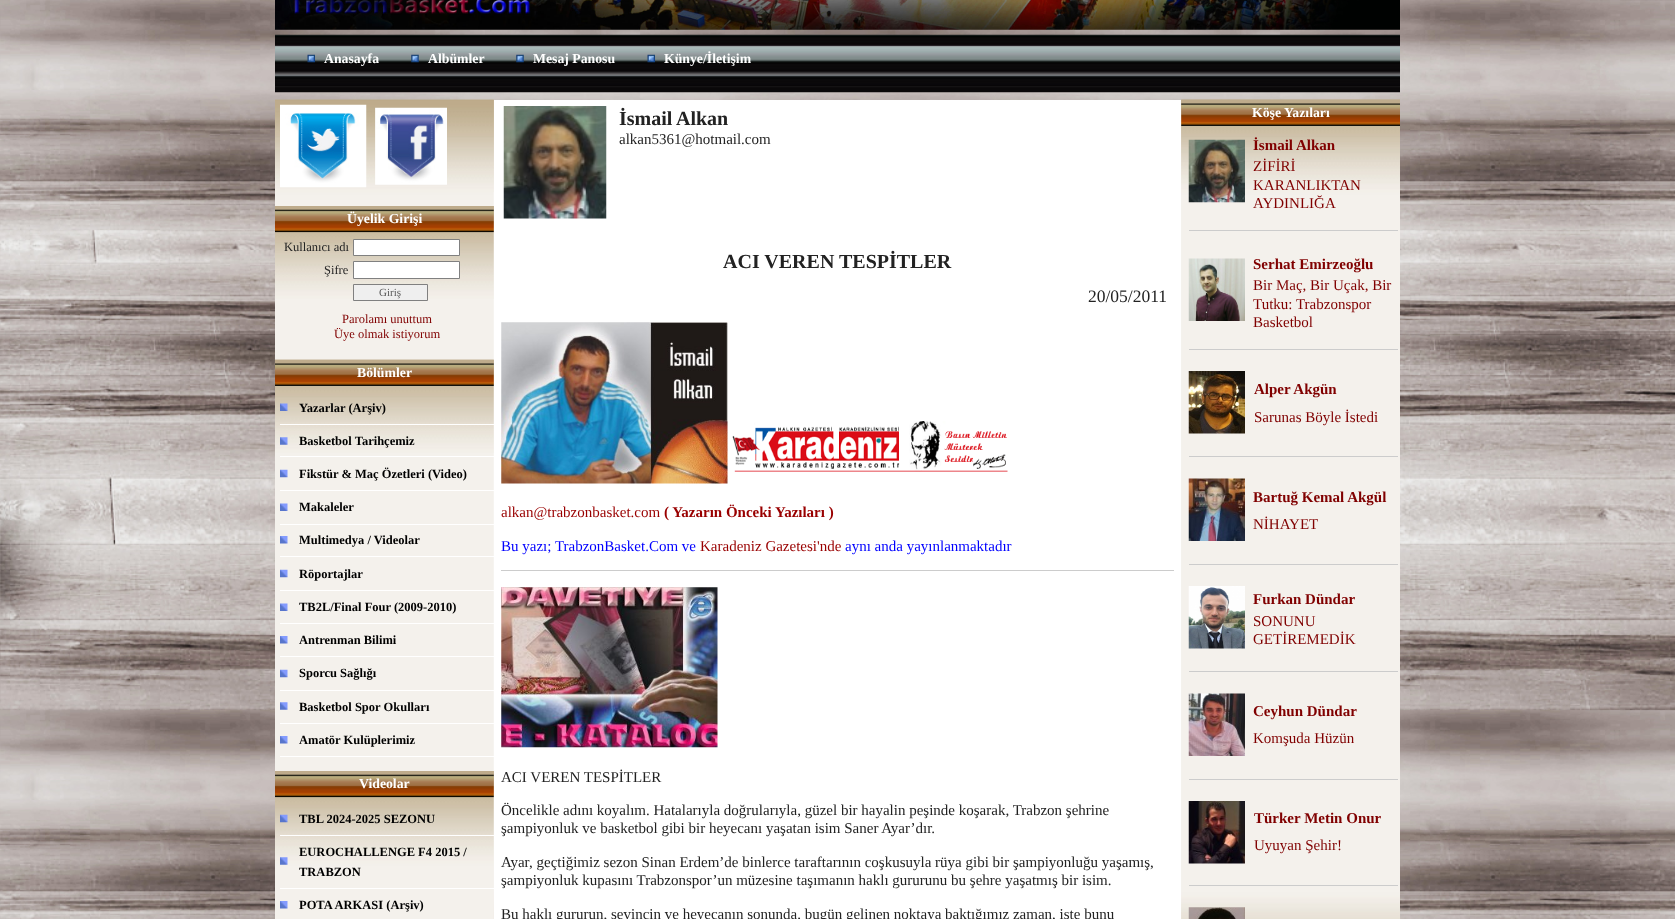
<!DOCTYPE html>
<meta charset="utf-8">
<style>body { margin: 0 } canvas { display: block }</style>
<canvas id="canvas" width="1675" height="919"></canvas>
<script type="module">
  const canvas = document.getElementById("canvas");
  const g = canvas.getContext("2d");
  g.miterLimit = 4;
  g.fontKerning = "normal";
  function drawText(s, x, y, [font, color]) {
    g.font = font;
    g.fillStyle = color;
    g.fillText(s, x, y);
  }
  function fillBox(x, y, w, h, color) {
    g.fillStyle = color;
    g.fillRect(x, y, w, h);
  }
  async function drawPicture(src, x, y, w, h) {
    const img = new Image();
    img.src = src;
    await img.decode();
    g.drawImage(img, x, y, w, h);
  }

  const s1 = ["bold 13.75px Liberation Serif", "#FFFFFF"];
  const s2 = ["12.5px Liberation Serif", "#222222"];
  const s3 = ["11px Liberation Serif", "#585858"];
  const s4 = ["12.5px Liberation Serif", "#800000"];
  const s5 = ["bold 12.5px Liberation Serif", "#000000"];
  const s6 = ["bold 20px Liberation Serif", "#222222"];
  const s7 = ["15px Liberation Serif", "#222222"];
  const s8 = ["17.5px Liberation Serif", "#222222"];
  const s9 = ["15px Liberation Serif", "#990000"];
  const s10 = ["bold 15px Liberation Serif", "#990000"];
  const s11 = ["15px Liberation Serif", "#0000FF"];
  const s12 = ["bold 15px Liberation Serif", "#800000"];
  const s13 = ["15px Liberation Serif", "#800000"];

  fillBox(0, 0, 1675, 919, "#FFFFFF");
  await drawPicture("pic1.png", 0, 0, 1675, 919);
  await drawPicture("pic2.png", 275, 0, 1125, 30);
  await drawPicture("pic3.png", 275, 34, 1125, 59);
  await drawPicture("pic4.png", 307, 54, 8, 9);
  drawText("Anasayfa", 324, 63, s1);
  await drawPicture("pic5.png", 411, 54, 8, 9);
  drawText("Albümler", 428, 63, s1);
  await drawPicture("pic5.png", 516, 54, 8, 9);
  drawText("Mesaj Panosu", 533, 63, s1);
  await drawPicture("pic4.png", 647, 54, 8, 9);
  drawText("Künye/İletişim", 664, 63, s1);
  fillBox(493, 100, 689, 819, "#FFFFFF");
  await drawPicture("pic6.png", 275, 99, 219, 820);
  await drawPicture("pic7.png", 275, 99, 219, 93);
  await drawPicture("pic8.png", 280, 104, 87, 84);
  await drawPicture("pic9.png", 375, 107, 72, 78);
  await drawPicture("pic10.png", 275, 206, 219, 93);
  await drawPicture("pic11.png", 275, 206, 219, 27);
  drawText("Üyelik Girişi", 347, 223, s1);
  drawText("Kullanıcı adı", 284, 251, s2);
  g.fillStyle = "#FFFFFF";
  g.beginPath();
  g.rect(353.5, 239.5, 106, 16);
  g.fill();
  g.strokeStyle = "#808080";
  g.stroke();
  drawText("Şifre", 324, 274, s2);
  g.fillStyle = "#FFFFFF";
  g.beginPath();
  g.rect(353.5, 261.5, 106, 17);
  g.fill();
  g.stroke();
  g.fillStyle = "#EFEFEF";
  g.beginPath();
  g.rect(353.5, 284.5, 74, 16);
  g.fill();
  g.stroke();
  drawText("Giriş", 379, 296, s3);
  drawText("Parolamı unuttum", 342, 323, s4);
  drawText("Üye olmak istiyorum", 334, 338, s4);
  await drawPicture("pic12.png", 275, 359, 219, 94);
  await drawPicture("pic13.png", 275, 359, 219, 27);
  drawText("Bölümler", 357, 377, s1);
  await drawPicture("pic14.png", 280, 403, 8, 8);
  fillBox(280, 424, 214, 1, "#FFFFFF");
  drawText("Yazarlar (Arşiv)", 299, 412, s5);
  await drawPicture("pic15.png", 280, 437, 8, 8);
  fillBox(280, 456, 214, 1, "#FFFFFF");
  drawText("Basketbol Tarihçemiz", 299, 445, s5);
  await drawPicture("pic16.png", 280, 469, 8, 9);
  fillBox(280, 490, 214, 1, "#FFFFFF");
  drawText("Fikstür & Maç Özetleri (Video)", 299, 478, s5);
  await drawPicture("pic17.png", 280, 503, 8, 8);
  fillBox(280, 524, 214, 1, "#FFFFFF");
  drawText("Makaleler", 299, 511, s5);
  await drawPicture("pic18.png", 280, 536, 8, 8);
  fillBox(280, 556, 214, 1, "#FFFFFF");
  drawText("Multimedya / Videolar", 299, 544, s5);
  await drawPicture("pic16.png", 280, 569, 8, 9);
  fillBox(280, 590, 214, 1, "#FFFFFF");
  drawText("Röportajlar", 299, 578, s5);
  await drawPicture("pic17.png", 280, 603, 8, 8);
  fillBox(280, 623, 214, 1, "#FFFFFF");
  drawText("TB2L/Final Four (2009-2010)", 299, 611, s5);
  await drawPicture("pic18.png", 280, 636, 8, 8);
  fillBox(280, 656, 214, 1, "#FFFFFF");
  drawText("Antrenman Bilimi", 299, 644, s5);
  await drawPicture("pic16.png", 280, 669, 8, 9);
  fillBox(280, 690, 214, 1, "#FFFFFF");
  drawText("Sporcu Sağlığı", 299, 677, s5);
  await drawPicture("pic19.png", 280, 702, 8, 8);
  fillBox(280, 723, 214, 1, "#FFFFFF");
  drawText("Basketbol Spor Okulları", 299, 711, s5);
  await drawPicture("pic18.png", 280, 736, 8, 8);
  fillBox(280, 756, 214, 1, "#FFFFFF");
  drawText("Amatör Kulüplerimiz", 299, 744, s5);
  await drawPicture("pic20.png", 275, 771, 219, 148);
  await drawPicture("pic21.png", 275, 771, 219, 27);
  drawText("Videolar", 359, 788, s1);
  await drawPicture("pic22.png", 280, 814, 8, 9);
  fillBox(280, 835, 214, 1, "#FFFFFF");
  drawText("TBL 2024-2025 SEZONU", 299, 823, s5);
  await drawPicture("pic23.png", 280, 857, 8, 8);
  fillBox(280, 888, 214, 1, "#FFFFFF");
  drawText("EUROCHALLENGE F4 2015 /", 299, 856, s5);
  drawText("TRABZON", 299, 876, s5);
  await drawPicture("pic18.png", 280, 901, 8, 8);
  drawText("POTA ARKASI (Arşiv)", 299, 909, s5);
  await drawPicture("pic24.png", 503, 106, 104, 113);
  drawText("İsmail", 619, 125, s6);
  drawText("Alkan", 676, 125, s6);
  drawText("alkan5361@hotmail.com", 619, 144, s7);
  drawText("ACI VEREN TESPİTLER", 723, 268, s6);
  drawText("20/05/2011", 1088, 302, s8);
  await drawPicture("pic25.png", 501, 322, 227, 162);
  await drawPicture("pic26.png", 732, 421, 276, 51);
  drawText("alkan@trabzonbasket.com", 501, 517, s9);
  drawText("( Yazarın Önceki Yazıları )", 664, 517, s10);
  drawText("Bu yazı; TrabzonBasket.Com ve", 501, 551, s11);
  drawText("Karadeniz Gazetesi'nde", 700, 551, s9);
  drawText("aynı anda yayınlanmaktadır", 845, 551, s11);
  fillBox(501, 570, 673, 1, "#CCCCCC");
  await drawPicture("pic27.png", 501, 587, 217, 161);
  drawText("ACI VEREN TESPİTLER", 501, 782, s7);
  drawText("Öncelikle adını koyalım. Hatalarıyla doğrularıyla, güzel bir hayalin peşinde koşarak, Trabzon şehrine", 501, 815, s7);
  drawText("şampiyonluk ve basketbol gibi bir heyecanı yaşatan isim Saner Ayar’dır.", 501, 833, s7);
  drawText("Ayar, geçtiğimiz sezon Sinan Erdem’de binlerce taraftarının coşkusuyla rüya gibi bir şampiyonluğu yaşamış,", 501, 867, s7);
  drawText("şampiyonluk kupasını Trabzonspor’un müzesine taşımanın haklı gururunu bu şehre yaşatmış bir isim.", 501, 885, s7);
  drawText("Bu haklı gururun, sevincin ve heyecanın sonunda, bugün gelinen noktaya baktığımız zaman, işte bunu", 501, 919, s7);
  await drawPicture("pic28.png", 1181, 99, 219, 820);
  await drawPicture("pic29.png", 1181, 99, 219, 820);
  await drawPicture("pic30.png", 1181, 99, 219, 27);
  drawText("Köşe Yazıları", 1252, 117, s1);
  await drawPicture("pic31.png", 1188, 139, 57, 64);
  drawText("İsmail", 1253, 150, s12);
  drawText("Alkan", 1296, 150, s12);
  drawText("ZİFİRİ", 1253, 171, s13);
  drawText("KARANLIKTAN", 1253, 190, s13);
  drawText("AYDINLIĞA", 1253, 208, s13);
  fillBox(1189, 230, 209, 1, "#CCCCCC");
  await drawPicture("pic32.png", 1188, 258, 57, 63);
  drawText("Serhat Emirzeoğlu", 1253, 269, s12);
  drawText("Bir Maç, Bir Uçak, Bir", 1253, 290, s13);
  drawText("Tutku: Trabzonspor", 1253, 309, s13);
  drawText("Basketbol", 1253, 327, s13);
  fillBox(1189, 349, 209, 1, "#CCCCCC");
  await drawPicture("pic33.png", 1188, 371, 57, 63);
  drawText("Alper Akgün", 1254, 394, s12);
  drawText("Sarunas Böyle İstedi", 1254, 422, s13);
  fillBox(1189, 456, 209, 1, "#CCCCCC");
  await drawPicture("pic34.png", 1188, 478, 57, 63);
  drawText("Bartuğ Kemal Akgül", 1253, 502, s12);
  drawText("NİHAYET", 1253, 529, s13);
  fillBox(1189, 564, 209, 1, "#CCCCCC");
  await drawPicture("pic35.png", 1188, 586, 57, 63);
  drawText("Furkan Dündar", 1253, 604, s12);
  drawText("SONUNU", 1253, 626, s13);
  drawText("GETİREMEDİK", 1253, 644, s13);
  fillBox(1189, 671, 209, 1, "#CCCCCC");
  await drawPicture("pic36.png", 1188, 693, 57, 63);
  drawText("Ceyhun Dündar", 1253, 716, s12);
  drawText("Komşuda Hüzün", 1253, 743, s13);
  fillBox(1189, 779, 209, 1, "#CCCCCC");
  await drawPicture("pic37.png", 1188, 801, 57, 63);
  drawText("Türker Metin Onur", 1254, 823, s12);
  drawText("Uyuyan Şehir!", 1254, 850, s13);
  fillBox(1189, 885, 209, 1, "#CCCCCC");
  await drawPicture("pic38.png", 1188, 907, 57, 12);
</script>
